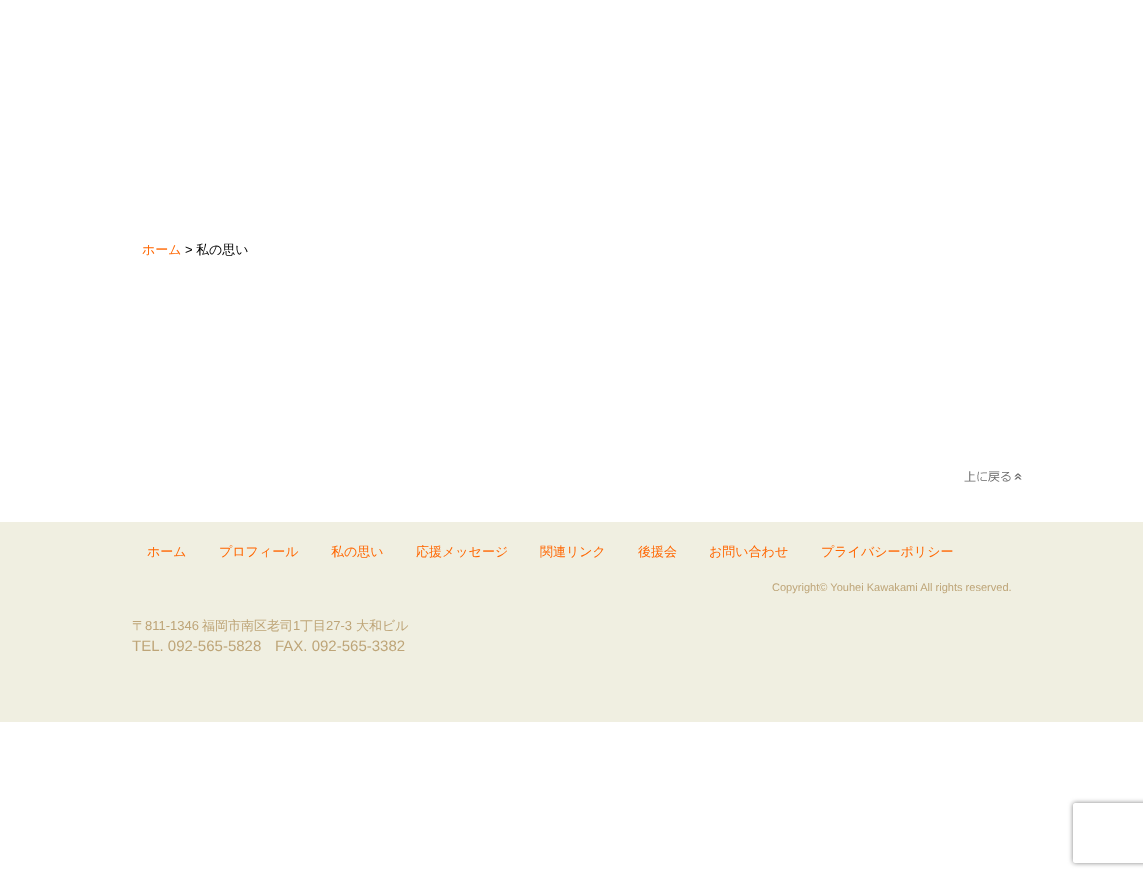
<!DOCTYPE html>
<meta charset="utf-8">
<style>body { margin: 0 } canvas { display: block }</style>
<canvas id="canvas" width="1143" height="877"></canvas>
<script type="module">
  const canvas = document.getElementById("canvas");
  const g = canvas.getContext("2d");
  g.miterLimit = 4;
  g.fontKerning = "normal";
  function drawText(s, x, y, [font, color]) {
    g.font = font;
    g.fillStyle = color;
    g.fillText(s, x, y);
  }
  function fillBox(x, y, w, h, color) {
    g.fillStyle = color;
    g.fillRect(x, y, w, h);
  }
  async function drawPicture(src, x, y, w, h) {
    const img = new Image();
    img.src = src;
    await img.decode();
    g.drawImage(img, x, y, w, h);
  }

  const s1 = ["500 13px WenQuanYi Zen Hei", "#FF6600"];
  const s2 = ["13px Liberation Sans", "#000000"];
  const s3 = ["500 13px WenQuanYi Zen Hei", "#000000"];
  const s4 = ["11.05px Liberation Sans", "#BEA578"];
  const s5 = ["500 13px WenQuanYi Zen Hei", "#BEA578"];
  const s6 = ["13px Liberation Sans", "#BEA578"];
  const s7 = ["15px Liberation Sans", "#BEA578"];

  fillBox(0, 0, 1143, 877, "#FFFFFF");
  drawText("ホーム", 142, 254, s1);
  drawText(">", 185, 254, s2);
  drawText("私の思い", 196, 254, s3);
  await drawPicture("pic1.png", 964, 471, 58, 11);
  fillBox(0, 522, 1143, 200, "#F0EFE1");
  drawText("ホーム", 147, 556, s1);
  drawText("プロフィール", 219, 556, s1);
  drawText("私の思い", 331, 556, s1);
  drawText("応援メッセージ", 416, 556, s1);
  drawText("関連リンク", 540, 556, s1);
  drawText("後援会", 638, 556, s1);
  drawText("お問い合わせ", 709, 556, s1);
  drawText("プライバシーポリシー", 821, 556, s1);
  drawText("Copyright© Youhei Kawakami All rights reserved.", 772, 591, s4);
  drawText("〒", 132, 630, s5);
  drawText("811-1346", 145, 630, s6);
  drawText("福岡市南区老司", 202, 630, s5);
  drawText("1", 293, 630, s6);
  drawText("丁目", 300, 630, s5);
  drawText("27-3", 326, 630, s6);
  drawText("大和ビル", 356, 630, s5);
  drawText("TEL. 092-565-5828", 132, 651, s7);
  drawText("FAX. 092-565-3382", 275, 651, s7);
  g.save();
  g.beginPath();
  g.moveTo(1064, 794);
  g.lineTo(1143, 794);
  g.lineTo(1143, 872);
  g.lineTo(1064, 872);
  g.closePath();
  g.moveTo(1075, 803);
  g.lineTo(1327, 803);
  g.bezierCurveTo(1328, 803, 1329, 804, 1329, 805);
  g.lineTo(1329, 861);
  g.bezierCurveTo(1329, 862, 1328, 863, 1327, 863);
  g.lineTo(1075, 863);
  g.bezierCurveTo(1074, 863, 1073, 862, 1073, 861);
  g.lineTo(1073, 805);
  g.bezierCurveTo(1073, 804, 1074, 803, 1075, 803);
  g.closePath();
  g.clip("evenodd");
  g.fillStyle = "#808080";
  g.filter = "blur(2.5px)";
  g.beginPath();
  g.roundRect(1073, 803, 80, 60, 2);
  g.fill();
  g.filter = "none";
  g.restore();
</script>
